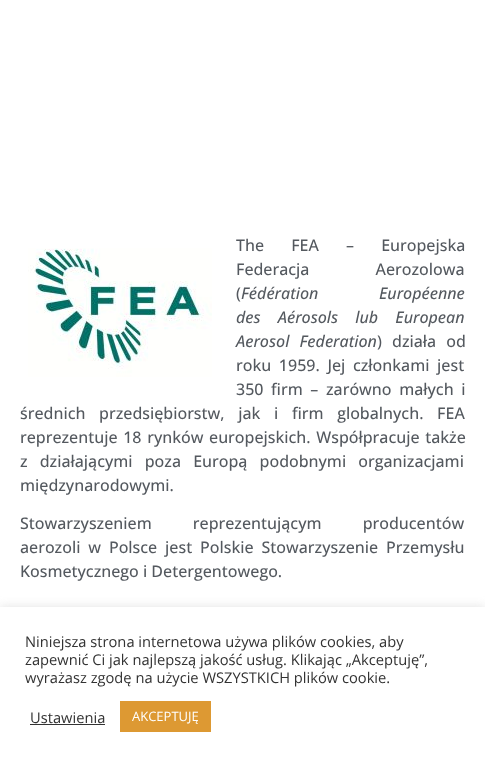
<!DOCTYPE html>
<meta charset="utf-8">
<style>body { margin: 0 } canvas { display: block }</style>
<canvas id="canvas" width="485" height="762"></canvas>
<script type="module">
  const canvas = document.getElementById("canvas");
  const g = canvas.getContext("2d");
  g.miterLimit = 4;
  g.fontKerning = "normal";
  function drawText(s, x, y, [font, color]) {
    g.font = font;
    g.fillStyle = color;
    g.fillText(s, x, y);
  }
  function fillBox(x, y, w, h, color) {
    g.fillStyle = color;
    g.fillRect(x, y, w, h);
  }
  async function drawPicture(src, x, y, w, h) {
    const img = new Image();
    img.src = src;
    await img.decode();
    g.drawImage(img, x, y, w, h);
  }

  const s1 = ["500 16px Open Sans", "#54595F"];
  const s2 = ["italic 500 16px Open Sans", "#54595F"];
  const s3 = ["14.7px Open Sans", "#333333"];
  const s4 = ["13px Open Sans", "#FFFFFF"];

  fillBox(0, 0, 485, 762, "#FFFFFF");
  await drawPicture("pic1.png", 28, 248, 184, 129);
  g.wordSpacing = "23px";
  drawText("The FEA – Europejska", 236, 251, s1);
  g.wordSpacing = "62px";
  drawText("Federacja Aerozolowa", 236, 275, s1);
  g.wordSpacing = "0px";
  drawText("(", 236, 299, s1);
  drawText("Fédération", 241, 299, s2);
  drawText("Européenne", 379, 299, s2);
  g.wordSpacing = "13px";
  drawText("des Aérosols lub European", 236, 323, s2);
  g.wordSpacing = "6px";
  drawText("Aerosol Federation", 236, 347, s2);
  drawText(") działa od", 377, 347, s1);
  g.wordSpacing = "3.5px";
  drawText("roku 1959. Jej członkami jest", 236, 371, s1);
  drawText("350 firm – zarówno małych i", 236, 395, s1);
  g.wordSpacing = "9.5px";
  drawText("średnich przedsiębiorstw, jak i firm globalnych. FEA", 20, 419, s1);
  g.wordSpacing = "1.5px";
  drawText("reprezentuje 18 rynków europejskich. Współpracuje także", 20, 443, s1);
  g.wordSpacing = "8px";
  drawText("z działającymi poza Europą podobnymi organizacjami", 20, 467, s1);
  g.wordSpacing = "0px";
  drawText("międzynarodowymi.", 20, 491, s1);
  g.wordSpacing = "37px";
  drawText("Stowarzyszeniem reprezentującym producentów", 20, 529, s1);
  g.wordSpacing = "3.75px";
  drawText("aerozoli w Polsce jest Polskie Stowarzyszenie Przemysłu", 20, 553, s1);
  g.wordSpacing = "0px";
  drawText("Kosmetycznego i Detergentowego.", 20, 577, s1);
  g.fillStyle = "rgba(172, 171, 171, 0.3)";
  g.filter = "blur(5px)";
  g.beginPath();
  g.rect(0, 606, 485, 155);
  g.fill();
  g.filter = "none";
  fillBox(0, 607, 485, 155, "#FFFFFF");
  drawText("Niniejsza strona internetowa używa plików cookies, aby", 25, 647, s3);
  drawText("zapewnić Ci jak najlepszą jakość usług. Klikając „Akceptuję”,", 25, 665, s3);
  drawText("wyrażasz zgodę na użycie WSZYSTKICH plików cookie.", 25, 683, s3);
  drawText("Ustawienia", 30, 723, s3);
  fillBox(30, 724, 75, 1, "#333333");
  fillBox(120, 701, 91, 31, "#DD9933");
  drawText("AKCEPTUJĘ", 132, 721, s4);
</script>
